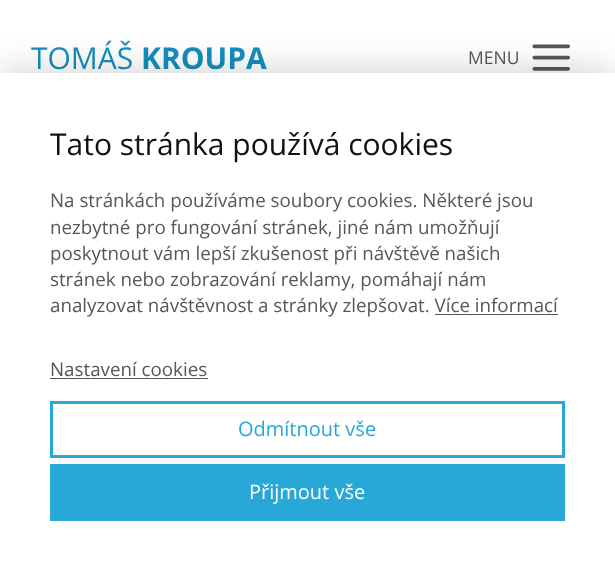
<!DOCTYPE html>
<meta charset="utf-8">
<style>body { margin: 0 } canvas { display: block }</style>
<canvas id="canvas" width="615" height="571"></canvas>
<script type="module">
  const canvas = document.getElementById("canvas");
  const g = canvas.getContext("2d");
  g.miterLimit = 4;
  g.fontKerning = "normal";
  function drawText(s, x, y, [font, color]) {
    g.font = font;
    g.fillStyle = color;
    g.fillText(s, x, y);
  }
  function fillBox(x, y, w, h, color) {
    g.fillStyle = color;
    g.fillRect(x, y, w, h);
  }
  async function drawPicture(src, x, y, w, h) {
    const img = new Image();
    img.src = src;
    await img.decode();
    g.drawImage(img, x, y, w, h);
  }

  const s1 = ["30px Open Sans", "#158EBF"];
  const s2 = ["bold 30px Open Sans", "#158EBF"];
  const s3 = ["17.5px Open Sans", "#575757"];
  const s4 = ["30px Open Sans", "#111111"];
  const s5 = ["18.75px Open Sans", "#575757"];
  const s6 = ["20px Open Sans", "#27A8D7"];
  const s7 = ["20px Open Sans", "#FFFFFF"];

  fillBox(0, 0, 615, 571, "#FFFFFF");
  drawText("TOMÁŠ", 31, 69, s1);
  drawText("KROUPA", 141, 69, s2);
  drawText("MENU", 468, 64, s3);
  await drawPicture("pic1.png", 532, 44, 38, 27);
  g.fillStyle = "rgba(0, 0, 0, 0.2)";
  g.filter = "blur(19px)";
  g.beginPath();
  g.rect(0, 73, 615, 498);
  g.fill();
  g.filter = "none";
  fillBox(0, 73, 615, 498, "#FFFFFF");
  drawText("Tato stránka používá cookies", 50, 155, s4);
  drawText("Na stránkách používáme soubory cookies. Některé jsou", 50, 207, s5);
  drawText("nezbytné pro fungování stránek, jiné nám umožňují", 50, 234, s5);
  drawText("poskytnout vám lepší zkušenost při návštěvě našich", 50, 260, s5);
  drawText("stránek nebo zobrazování reklamy, pomáhají nám", 50, 286, s5);
  drawText("analyzovat návštěvnost a stránky zlepšovat. Více informací", 50, 312, s5);
  fillBox(435, 314, 123, 1, "#555555");
  drawText("Nastavení cookies", 50, 376, s5);
  fillBox(50, 378, 158, 1, "#555555");
  g.strokeStyle = "#27A8D7";
  g.lineWidth = 3;
  g.strokeRect(51.5, 402.5, 512, 54);
  drawText("Odmítnout vše", 238, 436, s6);
  fillBox(50, 464, 515, 57, "#27A8D7");
  drawText("Přijmout vše", 249, 499, s7);
</script>
